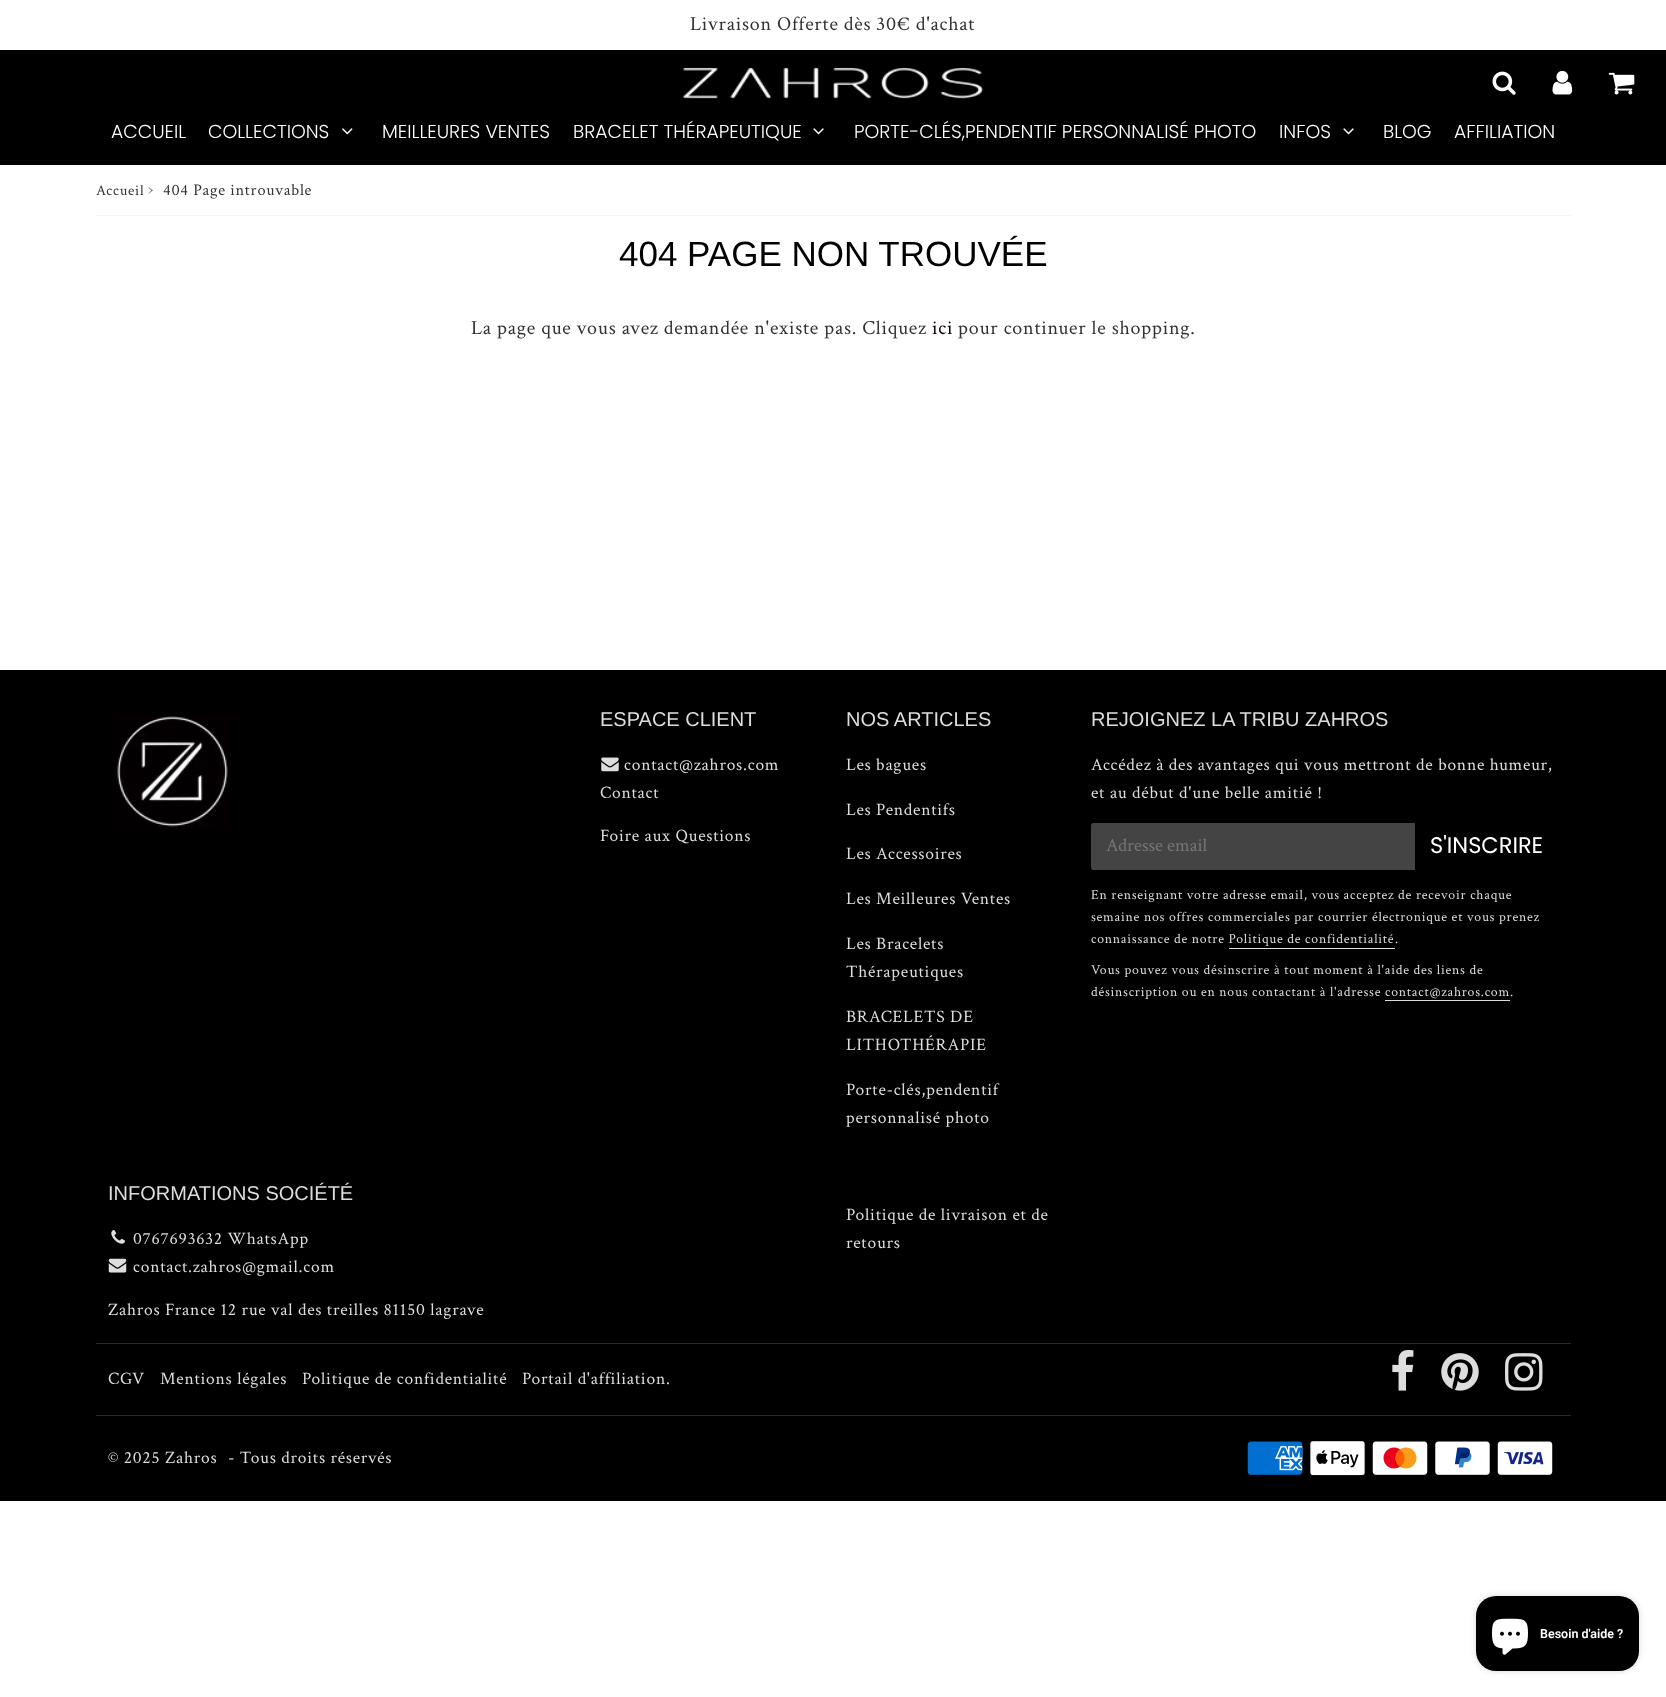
<!DOCTYPE html>
<meta charset="utf-8">
<style>body { margin: 0 } canvas { display: block }</style>
<canvas id="canvas" width="1666" height="1697"></canvas>
<script type="module">
  const canvas = document.getElementById("canvas");
  const g = canvas.getContext("2d");
  g.miterLimit = 4;
  g.fontKerning = "normal";
  function drawText(s, x, y, [font, color]) {
    g.font = font;
    g.fillStyle = color;
    g.fillText(s, x, y);
  }
  function fillBox(x, y, w, h, color) {
    g.fillStyle = color;
    g.fillRect(x, y, w, h);
  }
  function fillRounded(x, y, w, h, r, color) {
    g.fillStyle = color;
    g.beginPath();
    g.roundRect(x, y, w, h, r);
    g.fill();
  }
  async function drawPicture(src, x, y, w, h) {
    const img = new Image();
    img.src = src;
    await img.decode();
    g.drawImage(img, x, y, w, h);
  }

  const s1 = ["20px Crimson Text", "#333333"];
  const s2 = ["300 18.75px Poppins", "#FFFFFF"];
  const s3 = ["15px Crimson Text", "#333333"];
  const s4 = ["18.75px Crimson Text", "#767676"];
  const s5 = ["16.25px Crimson Text", "#333333"];
  const s6 = ["35px Liberation Sans", "#000000"];
  const s7 = ["20px Crimson Text", "#0A0000"];
  const s8 = ["20px Liberation Sans", "#DDDDDD"];
  const s9 = ["17.5px Crimson Text", "#DDDDDD"];
  const s10 = ["22.5px Poppins", "#FFFFFF"];
  const s11 = ["13.75px Crimson Text", "#DDDDDD"];
  const s12 = ["600 12.5px Roboto", "#FFFFFF"];

  fillBox(0, 0, 1666, 1697, "#FFFFFF");
  g.letterSpacing = "0.75px";
  drawText("Livraison Offerte dès 30€ d'achat", 690, 30, s1);
  fillBox(0, 50, 1666, 115, "#000000");
  await drawPicture("pic1.png", 682, 67, 301, 32);
  await drawPicture("pic2.png", 1492, 71, 24, 24);
  await drawPicture("pic3.png", 1552, 70, 21, 25);
  await drawPicture("pic4.png", 1608, 72, 27, 23);
  g.letterSpacing = "0px";
  drawText("ACCUEIL", 111, 138, s2);
  drawText("COLLECTIONS", 208, 138, s2);
  await drawPicture("pic5.png", 342, 128, 11, 7);
  drawText("MEILLEURES VENTES", 382, 138, s2);
  drawText("BRACELET THÉRAPEUTIQUE", 573, 138, s2);
  await drawPicture("pic6.png", 813, 128, 11, 7);
  drawText("PORTE-CLÉS,PENDENTIF PERSONNALISÉ PHOTO", 854, 138, s2);
  drawText("INFOS", 1279, 138, s2);
  await drawPicture("pic6.png", 1343, 128, 11, 7);
  drawText("BLOG", 1383, 138, s2);
  drawText("AFFILIATION", 1454, 138, s2);
  fillBox(96, 215, 1475, 1, "#F5F5F5");
  g.letterSpacing = "0.75px";
  drawText("Accueil", 96, 195, s3);
  drawText("›", 148, 195, s4);
  drawText("404 Page introuvable", 163, 195, s5);
  g.letterSpacing = "0px";
  drawText("404 PAGE NON TROUVÉE", 619, 266, s6);
  g.letterSpacing = "0.75px";
  drawText("La page que vous avez demandée n'existe pas. Cliquez", 471, 334, s1);
  drawText("ici", 932, 334, s7);
  drawText("pour continuer le shopping.", 958, 334, s1);
  fillBox(0, 670, 1666, 831, "#000000");
  await drawPicture("pic7.png", 113, 712, 120, 118);
  g.letterSpacing = "0px";
  drawText("ESPACE CLIENT", 600, 726, s8);
  await drawPicture("pic8.png", 601, 757, 18, 15);
  g.letterSpacing = "0.75px";
  drawText("contact@zahros.com", 624, 770, s9);
  drawText("Contact", 600, 798, s9);
  drawText("Foire aux Questions", 600, 841, s9);
  g.letterSpacing = "0px";
  drawText("NOS ARTICLES", 846, 726, s8);
  g.letterSpacing = "0.75px";
  drawText("Les bagues", 846, 770, s9);
  drawText("Les Pendentifs", 846, 815, s9);
  drawText("Les Accessoires", 846, 859, s9);
  drawText("Les Meilleures Ventes", 846, 904, s9);
  drawText("Les Bracelets", 846, 949, s9);
  drawText("Thérapeutiques", 846, 977, s9);
  drawText("BRACELETS DE", 846, 1022, s9);
  drawText("LITHOTHÉRAPIE", 846, 1050, s9);
  drawText("Porte-clés,pendentif", 846, 1095, s9);
  drawText("personnalisé photo", 846, 1123, s9);
  g.letterSpacing = "0px";
  drawText("REJOIGNEZ LA TRIBU ZAHROS", 1091, 726, s8);
  g.letterSpacing = "0.75px";
  drawText("Accédez à des avantages qui vous mettront de bonne humeur,", 1091, 770, s9);
  drawText("et au début d'une belle amitié !", 1091, 798, s9);
  g.fillStyle = "#444444";
  g.beginPath();
  g.roundRect(1091, 823, 324, 47, [2.5, 0, 0, 2.5]);
  g.fill();
  g.letterSpacing = "0px";
  drawText("Adresse email", 1106, 851, s4);
  drawText("S'INSCRIRE", 1430, 853, s10);
  g.letterSpacing = "0.75px";
  drawText("En renseignant votre adresse email, vous acceptez de recevoir chaque", 1091, 899, s11);
  drawText("semaine nos offres commerciales par courrier électronique et vous prenez", 1091, 921, s11);
  drawText("connaissance de notre Politique de confidentialité", 1091, 943, s11);
  drawText(".", 1395, 943, s11);
  fillBox(1229, 948, 166, 1, "#DDDDDD");
  drawText("Vous pouvez vous désinscrire à tout moment à l'aide des liens de", 1091, 974, s11);
  drawText("désinscription ou en nous contactant à l'adresse contact@zahros.com", 1091, 996, s11);
  drawText(".", 1510, 996, s11);
  fillBox(1385, 1000, 125, 1, "#DDDDDD");
  g.letterSpacing = "0px";
  drawText("INFORMATIONS SOCIÉTÉ", 108, 1200, s8);
  await drawPicture("pic9.png", 111, 1230, 14, 14);
  g.letterSpacing = "0.75px";
  drawText("0767693632 WhatsApp", 133, 1244, s9);
  await drawPicture("pic10.png", 108, 1258, 19, 15);
  drawText("contact.zahros@gmail.com", 133, 1272, s9);
  drawText("Zahros France 12 rue val des treilles 81150 lagrave", 108, 1315, s9);
  drawText("Politique de livraison et de", 846, 1220, s9);
  drawText("retours", 846, 1248, s9);
  fillBox(96, 1343, 1475, 1, "#2C2C2C");
  drawText("CGV", 108, 1384, s9);
  drawText("Mentions légales", 160, 1384, s9);
  drawText("Politique de confidentialité", 302, 1384, s9);
  drawText("Portail d'affiliation.", 522, 1384, s9);
  await drawPicture("pic11.png", 1392, 1350, 22, 41);
  await drawPicture("pic12.png", 1441, 1353, 38, 38);
  await drawPicture("pic13.png", 1505, 1353, 38, 38);
  fillBox(96, 1415, 1475, 1, "#2C2C2C");
  drawText("© 2025 Zahros", 108, 1463, s9);
  drawText("- Tous droits réservés", 228, 1463, s9);
  await drawPicture("pic14.png", 1247, 1441, 56, 34);
  await drawPicture("pic15.png", 1310, 1441, 55, 35);
  await drawPicture("pic16.png", 1372, 1441, 56, 34);
  await drawPicture("pic17.png", 1435, 1441, 55, 34);
  await drawPicture("pic18.png", 1497, 1441, 56, 34);
  g.fillStyle = "rgba(0, 0, 0, 0.15)";
  g.filter = "blur(3px)";
  g.beginPath();
  g.roundRect(1476, 1596, 163, 75, 20);
  g.fill();
  g.filter = "none";
  fillRounded(1476, 1596, 163, 75, 20, "#000000");
  await drawPicture("pic19.png", 1492, 1618, 36, 37);
  g.letterSpacing = "0px";
  drawText("Besoin d'aide ?", 1540, 1638, s12);
</script>
